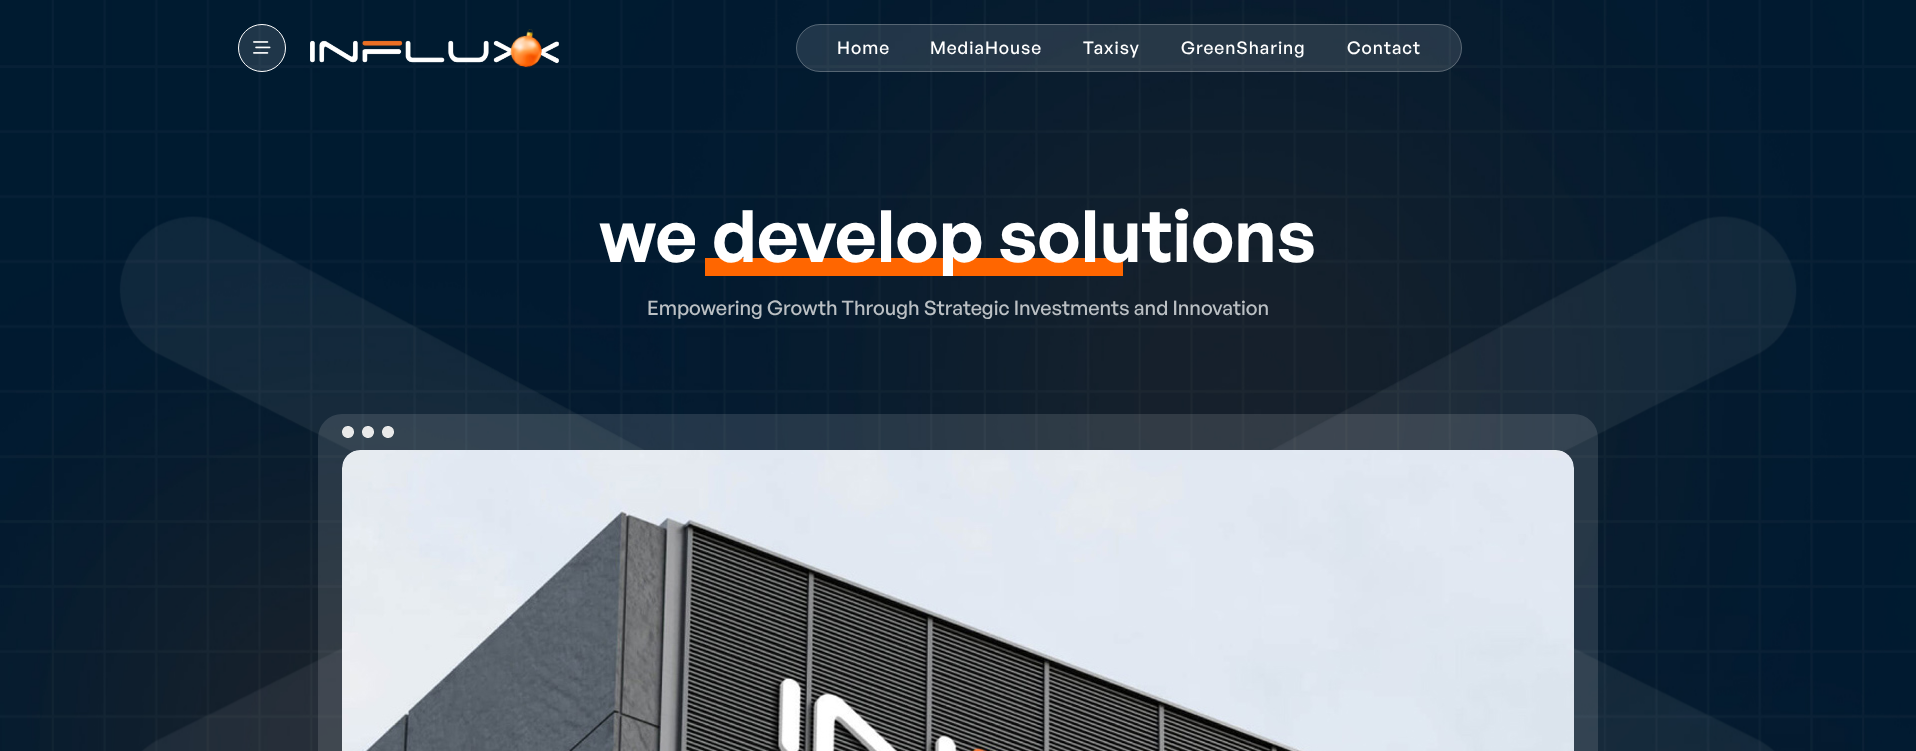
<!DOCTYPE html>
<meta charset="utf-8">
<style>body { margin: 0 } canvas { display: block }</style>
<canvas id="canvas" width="1916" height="751"></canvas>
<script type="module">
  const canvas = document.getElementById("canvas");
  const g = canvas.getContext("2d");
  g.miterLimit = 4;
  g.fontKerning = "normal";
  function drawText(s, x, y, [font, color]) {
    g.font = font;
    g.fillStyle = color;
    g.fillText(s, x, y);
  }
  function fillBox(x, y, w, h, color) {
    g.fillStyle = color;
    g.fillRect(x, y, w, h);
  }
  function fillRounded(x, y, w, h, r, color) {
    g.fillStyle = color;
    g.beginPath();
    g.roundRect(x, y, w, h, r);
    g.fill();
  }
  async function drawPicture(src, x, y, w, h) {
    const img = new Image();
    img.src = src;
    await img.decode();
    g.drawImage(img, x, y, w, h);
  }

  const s1 = ["500 17.5px General Sans", "#FFFFFF"];
  const s2 = ["600 72px General Sans", "#FFFFFF"];
  const s3 = ["500 20px General Sans", "#BBC0C4"];

  fillBox(0, 0, 1916, 751, "#FFFFFF");
  await drawPicture("pic3.png", 0, 0, 1916, 751);
  g.fillStyle = "rgba(255, 255, 255, 0.12)";
  g.beginPath();
  g.arc(262, 48, 23.5, 0, Math.PI * 2);
  g.fill();
  g.strokeStyle = "#FFFFFF";
  g.stroke();
  await drawPicture("pic1.png", 253, 41, 18, 13);
  await drawPicture("pic2.png", 310, 29, 249, 39);
  fillRounded(796, 24, 666, 48, 24, "rgba(255, 255, 255, 0.12)");
  g.beginPath();
  g.roundRect(796.5, 24.5, 665, 47, 23.5);
  g.strokeStyle = "rgba(255, 255, 255, 0.24)";
  g.stroke();
  g.letterSpacing = "1px";
  drawText("Home", 837, 54, s1);
  drawText("MediaHouse", 930, 54, s1);
  drawText("Taxisy", 1083, 54, s1);
  drawText("GreenSharing", 1181, 54, s1);
  drawText("Contact", 1347, 54, s1);
  fillBox(705, 258, 418, 18, "#FF6600");
  g.letterSpacing = "0px";
  drawText("we develop solutions", 599, 262, s2);
  drawText("Empowering Growth Through Strategic Investments and Innovation", 647, 315, s3);
  g.fillStyle = "rgba(255, 255, 255, 0.12)";
  g.beginPath();
  g.roundRect(318, 414, 1280, 337, [24, 24, 0, 0]);
  g.fill();
  await drawPicture("pic4.png", 342, 426, 52, 12);
  await drawPicture("pic5.png", 342, 450, 1232, 301);
</script>
